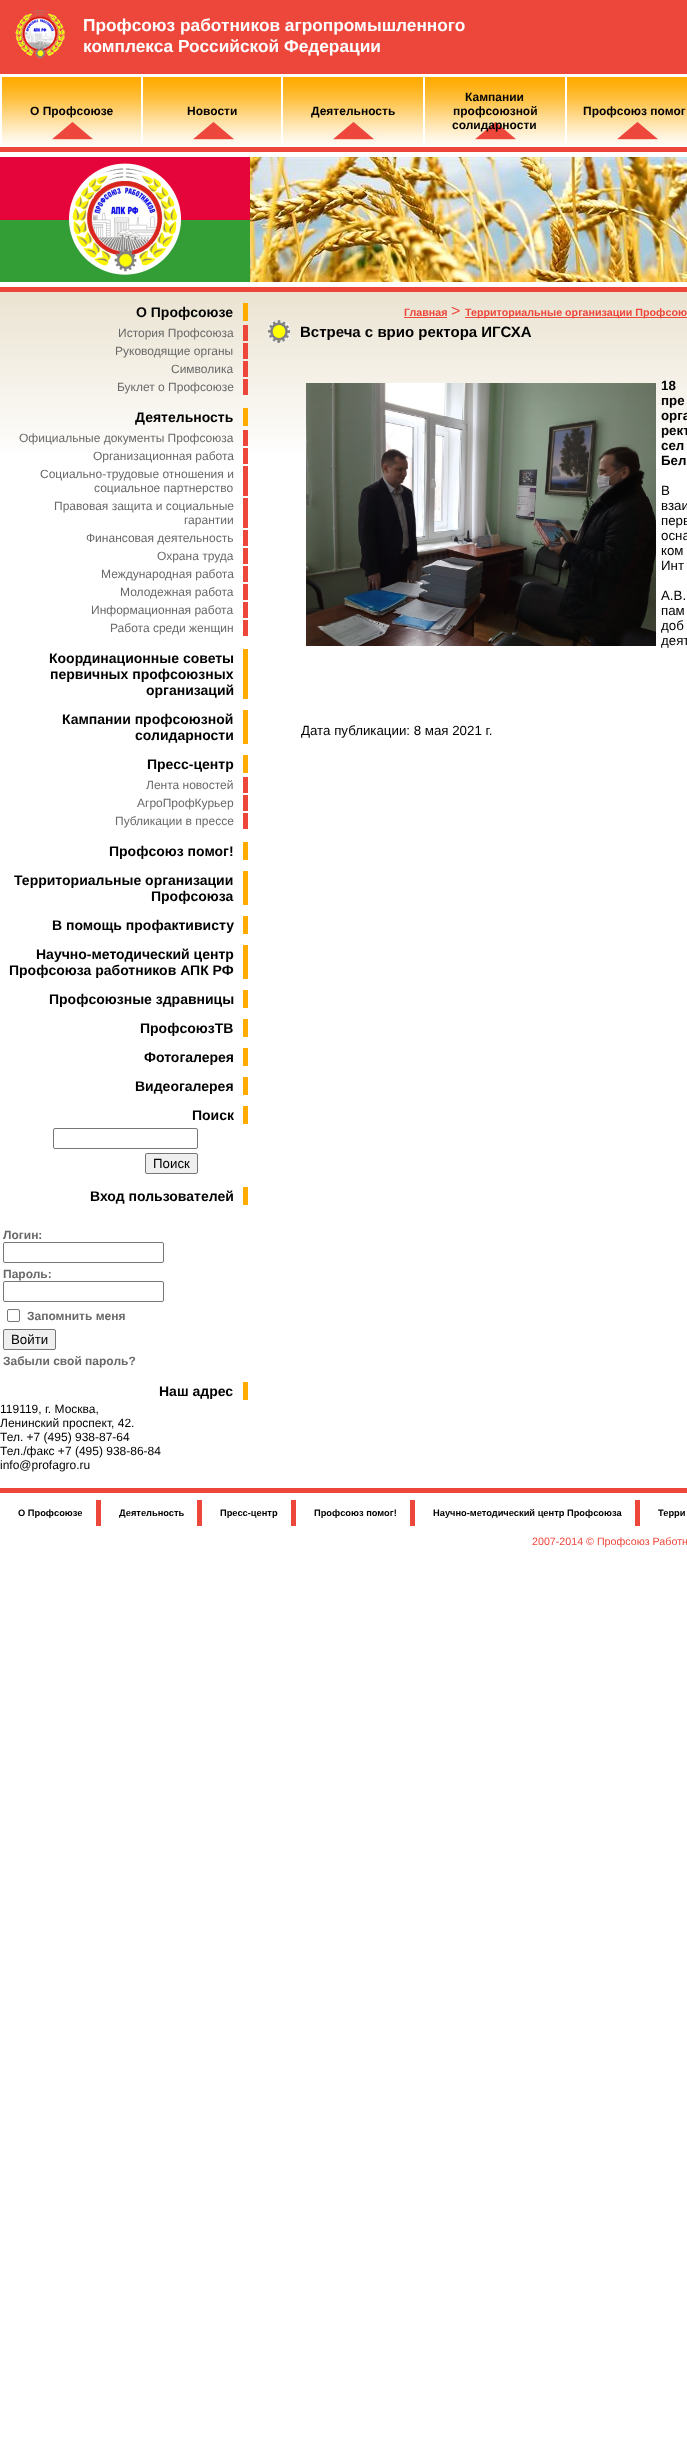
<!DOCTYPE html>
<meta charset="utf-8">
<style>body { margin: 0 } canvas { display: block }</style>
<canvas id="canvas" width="687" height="2445"></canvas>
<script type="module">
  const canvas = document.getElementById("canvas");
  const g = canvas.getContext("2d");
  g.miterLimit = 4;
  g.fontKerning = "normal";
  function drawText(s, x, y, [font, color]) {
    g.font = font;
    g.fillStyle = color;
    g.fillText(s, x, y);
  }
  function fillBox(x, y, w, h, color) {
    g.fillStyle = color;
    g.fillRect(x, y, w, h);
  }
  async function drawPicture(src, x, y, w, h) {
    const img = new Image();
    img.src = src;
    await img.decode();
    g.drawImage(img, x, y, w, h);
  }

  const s1 = ["bold 17.3px Liberation Sans", "#FFFFFF"];
  const s2 = ["bold 12px Liberation Sans", "#000000"];
  const s3 = ["bold 14px Liberation Sans", "#000000"];
  const s4 = ["12px Liberation Sans", "#696969"];
  const s5 = ["13.3px Liberation Sans", "#000000"];
  const s6 = ["bold 12px Liberation Sans", "#696969"];
  const s7 = ["12px Liberation Sans", "#000000"];
  const s8 = ["bold 10.7px Liberation Sans", "#ED473C"];
  const s9 = ["16px Liberation Sans", "#ED473C"];
  const s10 = ["bold 15px Liberation Sans", "#000000"];
  const s11 = ["bold 13.3px Liberation Sans", "#000000"];
  const s12 = ["bold 9.3px Liberation Sans", "#000000"];
  const s13 = ["10.7px Liberation Sans", "#ED473C"];

  fillBox(0, 0, 687, 2445, "#FFFFFF");
  fillBox(0, 0, 687, 74, "#ED473C");
  await drawPicture("pic1.png", 15, 10, 50, 49);
  drawText("Профсоюз работников агропромышленного", 83, 31, s1);
  drawText("комплекса Российской Федерации", 83, 52, s1);
  await drawPicture("pic2.png", 2, 77, 139, 70);
  drawText("О Профсоюзе", 30, 115, s2);
  await drawPicture("pic3.png", 143, 77, 138, 70);
  drawText("Новости", 187, 115, s2);
  await drawPicture("pic4.png", 283, 77, 140, 70);
  drawText("Деятельность", 311, 115, s2);
  await drawPicture("pic4.png", 425, 77, 140, 70);
  drawText("Кампании", 465, 101, s2);
  drawText("профсоюзной", 453, 115, s2);
  drawText("солидарности", 452, 129, s2);
  await drawPicture("pic5.png", 567, 77, 120, 70);
  drawText("Профсоюз помог", 583, 115, s2);
  fillBox(0, 147, 687, 5, "#ED473C");
  await drawPicture("pic6.png", 0, 157, 250, 125);
  await drawPicture("pic7.png", 250, 157, 437, 125);
  fillBox(0, 287, 687, 5, "#ED473C");
  await drawPicture("pic8.png", 0, 292, 687, 159);
  drawText("О Профсоюзе", 136, 317, s3);
  fillBox(243, 303, 5, 18, "#FFAB00");
  drawText("История Профсоюза", 118, 337, s4);
  fillBox(243, 325, 5, 16, "#ED473C");
  drawText("Руководящие органы", 115, 355, s4);
  fillBox(243, 343, 5, 16, "#ED473C");
  drawText("Символика", 171, 373, s4);
  fillBox(243, 361, 5, 16, "#ED473C");
  drawText("Буклет о Профсоюзе", 117, 391, s4);
  fillBox(243, 379, 5, 16, "#ED473C");
  drawText("Деятельность", 135, 422, s3);
  fillBox(243, 408, 5, 18, "#FFAB00");
  drawText("Официальные документы Профсоюза", 19, 442, s4);
  fillBox(243, 430, 5, 16, "#ED473C");
  drawText("Организационная работа", 93, 460, s4);
  fillBox(243, 448, 5, 16, "#ED473C");
  drawText("Социально-трудовые отношения и", 40, 478, s4);
  drawText("социальное партнерство", 94, 492, s4);
  fillBox(243, 466, 5, 30, "#ED473C");
  drawText("Правовая защита и социальные", 54, 510, s4);
  drawText("гарантии", 184, 524, s4);
  fillBox(243, 498, 5, 30, "#ED473C");
  drawText("Финансовая деятельность", 86, 542, s4);
  fillBox(243, 530, 5, 16, "#ED473C");
  drawText("Охрана труда", 157, 560, s4);
  fillBox(243, 548, 5, 16, "#ED473C");
  drawText("Международная работа", 101, 578, s4);
  fillBox(243, 566, 5, 16, "#ED473C");
  drawText("Молодежная работа", 120, 596, s4);
  fillBox(243, 584, 5, 16, "#ED473C");
  drawText("Информационная работа", 91, 614, s4);
  fillBox(243, 602, 5, 16, "#ED473C");
  drawText("Работа среди женщин", 110, 632, s4);
  fillBox(243, 620, 5, 16, "#ED473C");
  drawText("Координационные советы", 49, 663, s3);
  drawText("первичных профсоюзных", 50, 679, s3);
  drawText("организаций", 146, 695, s3);
  fillBox(243, 649, 5, 50, "#FFAB00");
  drawText("Кампании профсоюзной", 62, 724, s3);
  drawText("солидарности", 135, 740, s3);
  fillBox(243, 710, 5, 34, "#FFAB00");
  drawText("Пресс-центр", 147, 769, s3);
  fillBox(243, 755, 5, 18, "#FFAB00");
  drawText("Лента новостей", 146, 789, s4);
  fillBox(243, 777, 5, 16, "#ED473C");
  drawText("АгроПрофКурьер", 137, 807, s4);
  fillBox(243, 795, 5, 16, "#ED473C");
  drawText("Публикации в прессе", 115, 825, s4);
  fillBox(243, 813, 5, 16, "#ED473C");
  drawText("Профсоюз помог!", 109, 856, s3);
  fillBox(243, 842, 5, 18, "#FFAB00");
  drawText("Территориальные организации", 14, 885, s3);
  drawText("Профсоюза", 151, 901, s3);
  fillBox(243, 871, 5, 34, "#FFAB00");
  drawText("В помощь профактивисту", 52, 930, s3);
  fillBox(243, 916, 5, 18, "#FFAB00");
  drawText("Научно-методический центр", 36, 959, s3);
  drawText("Профсоюза работников АПК РФ", 9, 975, s3);
  fillBox(243, 945, 5, 34, "#FFAB00");
  drawText("Профсоюзные здравницы", 49, 1004, s3);
  fillBox(243, 990, 5, 18, "#FFAB00");
  drawText("ПрофсоюзТВ", 140, 1033, s3);
  fillBox(243, 1019, 5, 18, "#FFAB00");
  drawText("Фотогалерея", 144, 1062, s3);
  fillBox(243, 1048, 5, 18, "#FFAB00");
  drawText("Видеогалерея", 135, 1091, s3);
  fillBox(243, 1077, 5, 18, "#FFAB00");
  drawText("Поиск", 192, 1120, s3);
  fillBox(243, 1106, 5, 18, "#FFAB00");
  g.beginPath();
  g.roundRect(53.5, 1128.5, 144, 20, 1.5);
  g.strokeStyle = "#767676";
  g.stroke();
  g.fillStyle = "#EFEFEF";
  g.beginPath();
  g.roundRect(145.5, 1153.5, 52, 20, 1.5);
  g.fill();
  g.stroke();
  drawText("Поиск", 153, 1168, s5);
  drawText("Вход пользователей", 90, 1201, s3);
  fillBox(243, 1187, 5, 18, "#FFAB00");
  drawText("Логин:", 3, 1239, s6);
  g.beginPath();
  g.roundRect(3.5, 1242.5, 160, 20, 1.5);
  g.stroke();
  drawText("Пароль:", 3, 1278, s6);
  g.beginPath();
  g.roundRect(3.5, 1281.5, 160, 20, 1.5);
  g.stroke();
  g.beginPath();
  g.roundRect(7.5, 1309.5, 12, 12, 1.5);
  g.stroke();
  drawText("Запомнить меня", 27, 1320, s6);
  g.fillStyle = "#EFEFEF";
  g.beginPath();
  g.roundRect(3.5, 1329.5, 52, 20, 1.5);
  g.fill();
  g.stroke();
  drawText("Войти", 11, 1344, s5);
  drawText("Забыли свой пароль?", 3, 1365, s6);
  drawText("Наш адрес", 159, 1396, s3);
  fillBox(243, 1382, 5, 18, "#FFAB00");
  drawText("119119, г. Москва,", 0, 1413, s7);
  drawText("Ленинский проспект, 42.", 0, 1427, s7);
  drawText("Тел. +7 (495) 938-87-64", 0, 1441, s7);
  drawText("Тел./факс +7 (495) 938-86-84", 0, 1455, s7);
  drawText("info@profagro.ru", 0, 1469, s7);
  drawText("Главная", 404, 316, s8);
  fillBox(404, 317, 43, 1, "#ED473C");
  drawText(">", 451, 316, s9);
  fillBox(465, 317, 222, 1, "#ED473C");
  drawText("Территориальные организации Профсою", 465, 316, s8);
  await drawPicture("pic9.png", 268, 320, 22, 23);
  drawText("Встреча с врио ректора ИГСХА", 300, 337, s10);
  await drawPicture("pic10.png", 306, 383, 350, 263);
  g.wordSpacing = "10px";
  drawText("18", 661, 390, s11);
  g.wordSpacing = "31px";
  drawText("пре", 661, 405, s11);
  g.wordSpacing = "3px";
  drawText("орга", 661, 420, s11);
  g.wordSpacing = "29px";
  drawText("рект", 661, 435, s11);
  g.wordSpacing = "6px";
  drawText("сел", 661, 450, s11);
  g.wordSpacing = "0px";
  drawText("Бел", 661, 465, s11);
  g.wordSpacing = "12px";
  drawText("В", 661, 495, s5);
  g.wordSpacing = "22px";
  drawText("взаи", 661, 510, s5);
  g.wordSpacing = "35px";
  drawText("перв", 661, 525, s5);
  g.wordSpacing = "44px";
  drawText("осна", 661, 540, s5);
  g.wordSpacing = "5px";
  drawText("ком", 661, 555, s5);
  g.wordSpacing = "0px";
  drawText("Инт", 661, 570, s5);
  g.wordSpacing = "7px";
  drawText("А.В.", 661, 600, s5);
  g.wordSpacing = "4px";
  drawText("пам", 661, 615, s5);
  g.wordSpacing = "0px";
  drawText("доб", 661, 630, s5);
  drawText("деят", 661, 645, s5);
  drawText("Дата публикации: 8 мая 2021 г.", 301, 735, s5);
  fillBox(0, 1488, 687, 5, "#ED473C");
  drawText("О Профсоюзе", 18, 1516, s12);
  fillBox(96, 1500, 5, 26, "#ED473C");
  drawText("Деятельность", 119, 1516, s12);
  fillBox(197, 1500, 5, 26, "#ED473C");
  drawText("Пресс-центр", 220, 1516, s12);
  fillBox(291, 1500, 5, 26, "#ED473C");
  drawText("Профсоюз помог!", 314, 1516, s12);
  fillBox(410, 1500, 5, 26, "#ED473C");
  drawText("Научно-методический центр Профсоюза", 433, 1516, s12);
  fillBox(635, 1500, 5, 26, "#ED473C");
  drawText("Терри", 658, 1516, s12);
  drawText("2007-2014 © Профсоюз Работн", 532, 1545, s13);
</script>
